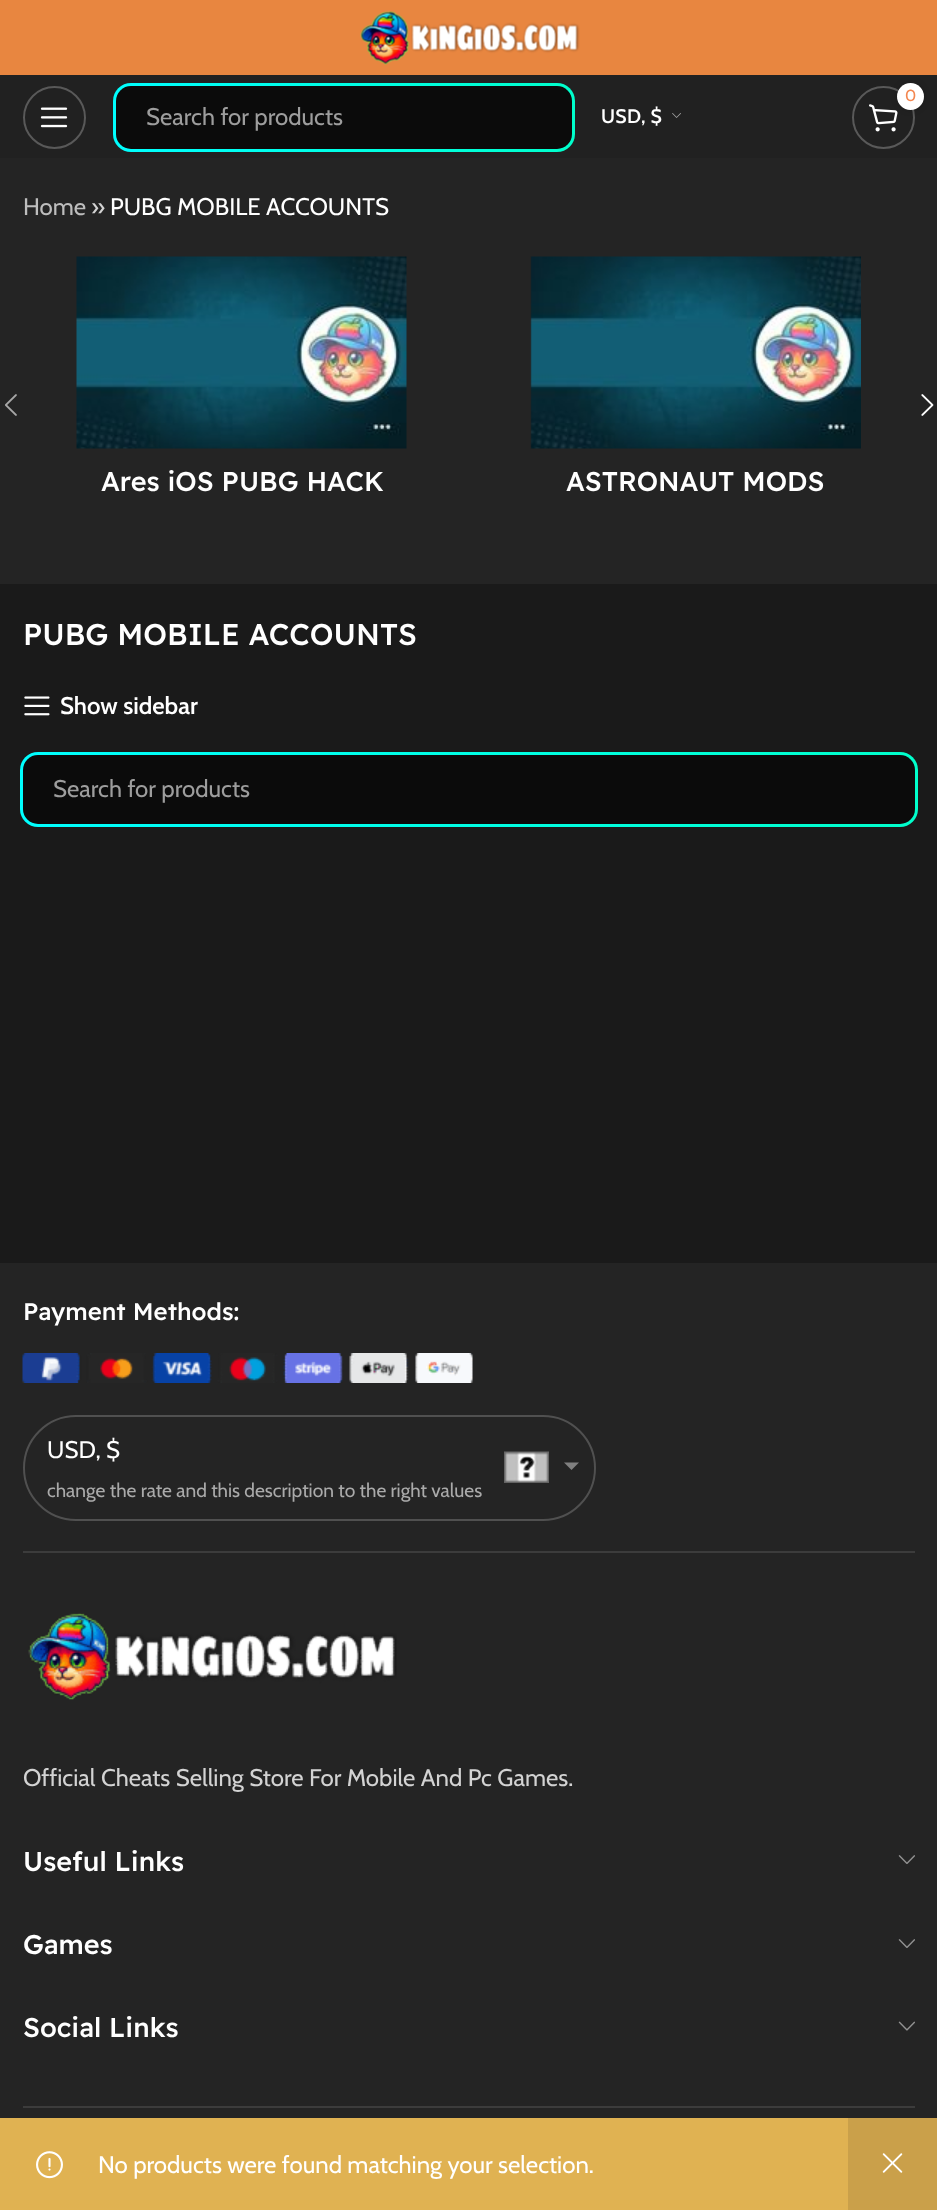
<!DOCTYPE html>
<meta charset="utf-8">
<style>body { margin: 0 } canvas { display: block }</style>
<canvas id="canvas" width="937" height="2210"></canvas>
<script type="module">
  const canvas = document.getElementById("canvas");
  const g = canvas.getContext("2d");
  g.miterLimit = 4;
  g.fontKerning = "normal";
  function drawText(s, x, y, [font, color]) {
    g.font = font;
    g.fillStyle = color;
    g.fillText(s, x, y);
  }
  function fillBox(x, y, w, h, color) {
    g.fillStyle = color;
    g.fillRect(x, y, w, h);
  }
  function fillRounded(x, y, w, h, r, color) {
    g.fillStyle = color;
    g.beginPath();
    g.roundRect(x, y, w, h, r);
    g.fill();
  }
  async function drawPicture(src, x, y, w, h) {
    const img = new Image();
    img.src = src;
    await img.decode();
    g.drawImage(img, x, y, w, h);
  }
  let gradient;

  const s1 = ["16px Cabin", "#F48750"];
  const s2 = ["24px Cabin", "#9D9D9D"];
  const s3 = ["600 19.5px Cabin", "#FFFFFF"];
  const s4 = ["24px Cabin", "#BDBDBD"];
  const s5 = ["24px Cabin", "#D3D3D3"];
  const s6 = ["24px Cabin", "#FFFFFF"];
  const s7 = ["500 27px Readex Pro", "#FFFFFF"];
  const s8 = ["500 30px Readex Pro", "#FFFFFF"];
  const s9 = ["600 24px Cabin", "#FFFFFF"];
  const s10 = ["500 24px Readex Pro", "#FFFFFF"];
  const s11 = ["19.2px Cabin", "#AAAAAA"];

  fillBox(0, 0, 937, 2210, "#1A1A1A");
  fillBox(0, 0, 937, 75, "#E88640");
  await drawPicture("pic1.png", 360, 11, 220, 54);
  fillBox(0, 75, 937, 83, "#212121");
  g.beginPath();
  g.arc(54.5, 117.5, 30.5, 0, Math.PI * 2);
  g.strokeStyle = "#595959";
  g.lineWidth = 2;
  g.stroke();
  await drawPicture("pic2.png", 40, 107, 28, 21);
  g.beginPath();
  g.arc(883.5, 117.5, 30.5, 0, Math.PI * 2);
  g.stroke();
  await drawPicture("pic3.png", 869, 104, 29, 28);
  g.fillStyle = "rgba(0, 0, 0, 0.17)";
  g.filter = "blur(3px)";
  g.beginPath();
  g.roundRect(897, 83, 27, 27, 13.5);
  g.fill();
  g.filter = "none";
  g.fillStyle = "#FFFFFF";
  g.beginPath();
  g.arc(910.5, 96.5, 13.5, 0, Math.PI * 2);
  g.fill();
  drawText("0", 905, 101, s1);
  gradient = g.createLinearGradient(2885, 289, 113, 290);
  gradient.addColorStop(0, "#00FFFF");
  gradient.addColorStop(0.33, "#FF00FF");
  gradient.addColorStop(0.67, "#00FF99");
  gradient.addColorStop(1, "#00FFFF");
  g.fillStyle = gradient;
  g.beginPath();
  g.roundRect(113, 83, 462, 69, 18);
  g.fill();
  fillRounded(116, 86, 456, 63, 15, "#0B0B0B");
  drawText("Search for products", 146, 125, s2);
  g.letterSpacing = "0.25px";
  drawText("USD, $", 601, 123, s3);
  await drawPicture("pic4.png", 672, 113, 9, 5);
  fillBox(0, 158, 937, 426, "#242424");
  g.letterSpacing = "0px";
  drawText("Home", 23, 215, s4);
  drawText("»", 91, 215, s5);
  drawText("PUBG MOBILE ACCOUNTS", 110, 215, s6);
  await drawPicture("pic5.png", 5, 394, 12, 22);
  await drawPicture("pic6.png", 921, 394, 13, 22);
  await drawPicture("pic7.png", 76, 256, 331, 193);
  drawText("Ares iOS PUBG HACK", 101, 491, s7);
  await drawPicture("pic8.png", 530, 256, 331, 193);
  drawText("ASTRONAUT MODS", 566, 491, s7);
  drawText("PUBG MOBILE ACCOUNTS", 23, 645, s8);
  await drawPicture("pic9.png", 24, 696, 26, 20);
  drawText("Show sidebar", 60, 714, s9);
  gradient = g.createLinearGradient(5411, 976, 20, 977);
  gradient.addColorStop(0, "#00FFFF");
  gradient.addColorStop(0.33, "#FF00FF");
  gradient.addColorStop(0.67, "#00FF99");
  gradient.addColorStop(1, "#00FFFF");
  g.fillStyle = gradient;
  g.beginPath();
  g.roundRect(20, 752, 898, 75, 18);
  g.fill();
  fillRounded(23, 755, 892, 69, 15, "#0B0B0B");
  drawText("Search for products", 53, 797, s2);
  fillBox(0, 2118, 848, 92, "#E0B252");
  await drawPicture("pic10.png", 36, 2151, 27, 28);
  drawText("No products were found matching your selection.", 98, 2173, s6);
  fillBox(848, 2118, 89, 92, "#CAA04A");
  await drawPicture("pic11.png", 882, 2153, 21, 20);
  fillBox(0, 1263, 937, 855, "#242424");
  fillBox(23, 1551, 892, 2, "#3C3C3C");
  drawText("Payment Methods:", 23, 1320, s10);
  await drawPicture("pic12.png", 22, 1353, 451, 30);
  g.beginPath();
  g.roundRect(24, 1416, 571, 104, 52);
  g.strokeStyle = "#505050";
  g.stroke();
  drawText("USD, $", 47, 1458, s6);
  await drawPicture("pic13.png", 504, 1451, 45, 32);
  drawText("change the rate and this description to the right values", 47, 1497, s11);
  g.fillStyle = "#808080";
  g.beginPath();
  g.moveTo(564, 1462.5);
  g.lineTo(579, 1462.5);
  g.lineTo(571.5, 1470);
  g.closePath();
  g.fill();
  fillBox(23, 2106, 892, 2, "#3C3C3C");
  await drawPicture("pic14.png", 28, 1613, 369, 87);
  drawText("Official Cheats Selling Store For Mobile And Pc Games.", 23, 1786, s5);
  drawText("Useful Links", 23, 1871, s7);
  await drawPicture("pic15.png", 898, 1855, 17, 9);
  drawText("Games", 23, 1954, s7);
  await drawPicture("pic15.png", 898, 1939, 17, 9);
  drawText("Social Links", 23, 2037, s7);
  await drawPicture("pic16.png", 898, 2021, 17, 10);
</script>
